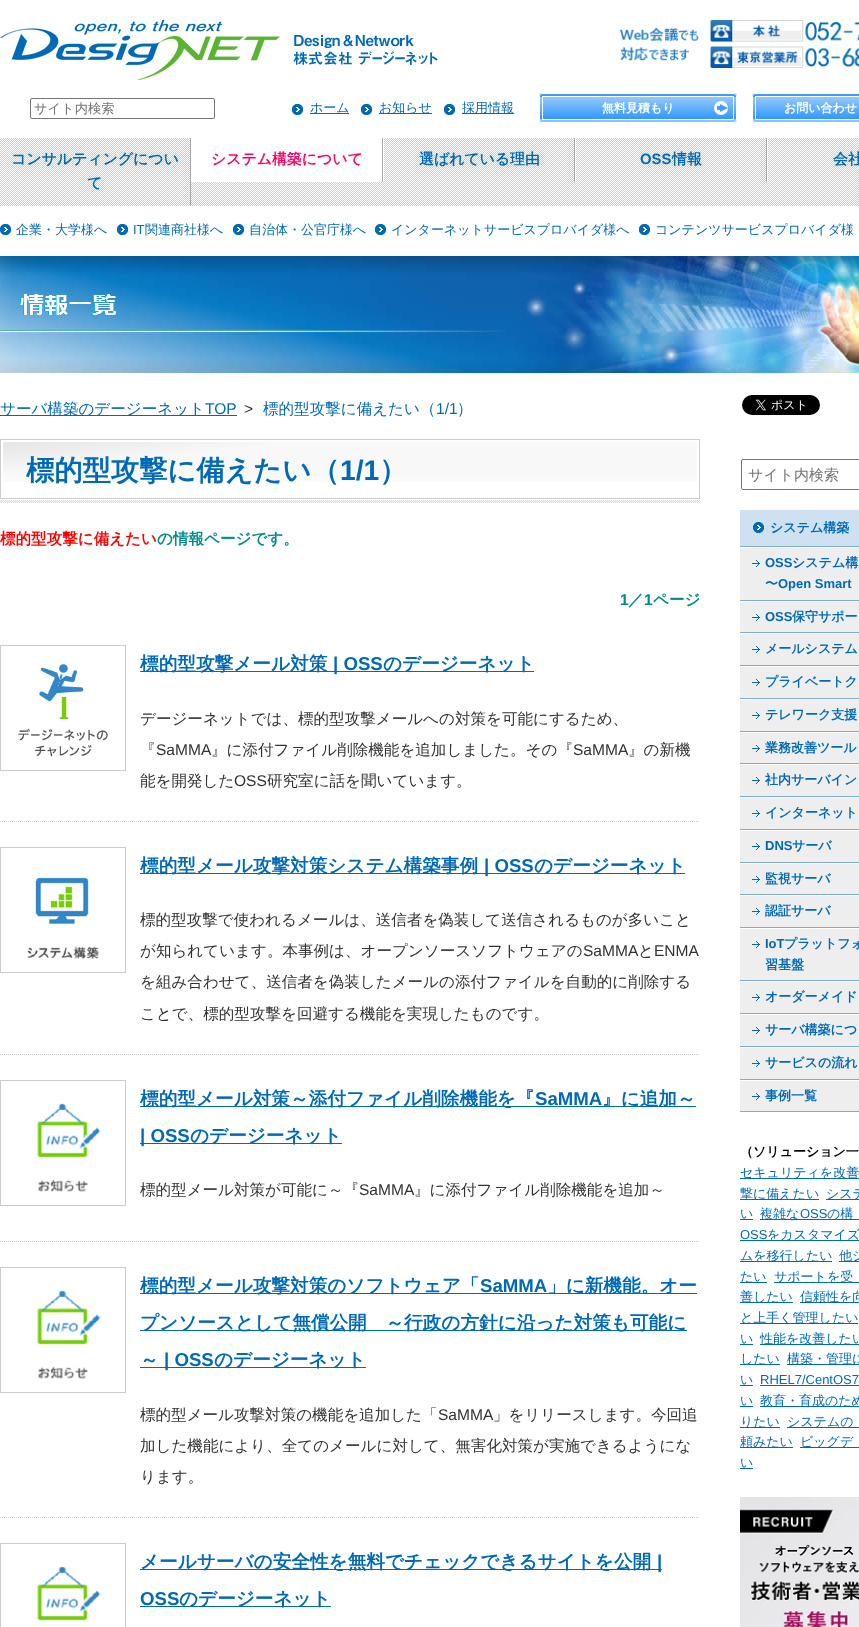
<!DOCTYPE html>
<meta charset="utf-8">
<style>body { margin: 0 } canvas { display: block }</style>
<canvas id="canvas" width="859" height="1627"></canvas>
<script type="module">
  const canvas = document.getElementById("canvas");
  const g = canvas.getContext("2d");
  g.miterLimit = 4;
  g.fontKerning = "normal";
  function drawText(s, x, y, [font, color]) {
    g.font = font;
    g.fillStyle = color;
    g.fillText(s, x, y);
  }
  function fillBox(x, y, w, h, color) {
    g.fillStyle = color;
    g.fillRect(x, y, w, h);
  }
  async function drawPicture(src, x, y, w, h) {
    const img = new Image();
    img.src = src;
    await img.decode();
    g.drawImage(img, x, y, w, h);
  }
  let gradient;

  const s1 = ["500 13.25px WenQuanYi Zen Hei", "#757575"];
  const s2 = ["500 13px WenQuanYi Zen Hei", "#006AB8"];
  const s3 = ["bold 12px WenQuanYi Zen Hei", "#FFFFFF"];
  const s4 = ["bold 14.9px WenQuanYi Zen Hei", "#006AB8"];
  const s5 = ["bold 14.9px WenQuanYi Zen Hei", "#FF0066"];
  const s6 = ["bold 14.9px Liberation Sans", "#006AB8"];
  const s7 = ["13px Liberation Sans", "#006AB8"];
  const s8 = ["500 15.55px WenQuanYi Zen Hei", "#006AB8"];
  const s9 = ["15.55px Liberation Sans", "#006AB8"];
  const s10 = ["15.55px Liberation Sans", "#333333"];
  const s11 = ["bold 28.25px WenQuanYi Zen Hei", "#006AB8"];
  const s12 = ["bold 28.25px Liberation Sans", "#006AB8"];
  const s13 = ["bold 15.55px WenQuanYi Zen Hei", "#FF0000"];
  const s14 = ["bold 15.55px WenQuanYi Zen Hei", "#008C8C"];
  const s15 = ["bold 15.55px Liberation Sans", "#008C8C"];
  const s16 = ["bold 18.65px WenQuanYi Zen Hei", "#006AB8"];
  const s17 = ["bold 18.65px Liberation Sans", "#006AB8"];
  const s18 = ["500 15.55px WenQuanYi Zen Hei", "#333333"];
  const s19 = ["500 15px WenQuanYi Zen Hei", "#757575"];
  const s20 = ["bold 13px WenQuanYi Zen Hei", "#006AB8"];
  const s21 = ["bold 13px Liberation Sans", "#006AB8"];
  const s22 = ["bold 13px WenQuanYi Zen Hei", "#000000"];

  fillBox(0, 0, 859, 1627, "#FFFFFF");
  await drawPicture("pic1.png", 0, 20, 438, 60);
  await drawPicture("pic2.png", 619, 20, 240, 48);
  g.beginPath();
  g.roundRect(30.5, 98.5, 184, 20, 1.5);
  g.strokeStyle = "#767676";
  g.stroke();
  drawText("サイト内検索", 34, 113, s1);
  await drawPicture("pic3.png", 292, 104, 11, 11);
  fillBox(310, 113, 39, 1, "#006AB8");
  drawText("ホーム", 310, 112, s2);
  await drawPicture("pic3.png", 361, 104, 11, 11);
  fillBox(379, 113, 53, 1, "#006AB8");
  drawText("お知らせ", 379, 112, s2);
  await drawPicture("pic3.png", 444, 104, 11, 11);
  fillBox(462, 113, 52, 1, "#006AB8");
  drawText("採用情報", 462, 112, s2);
  gradient = g.createLinearGradient(638, 75, 638, 97);
  gradient.addColorStop(0, "#95C8FC");
  gradient.addColorStop(1, "#3198FE");
  g.fillStyle = gradient;
  g.beginPath();
  g.roundRect(539, 93, 198, 4, [3, 3, 0, 0]);
  g.fill();
  gradient = g.createLinearGradient(638, 97, 638, 119);
  gradient.addColorStop(0, "#95C8FC");
  gradient.addColorStop(1, "#3198FE");
  g.fillStyle = gradient;
  g.fillRect(540, 97, 196, 22);
  gradient = g.createLinearGradient(638, 119, 638, 141);
  gradient.addColorStop(0, "#95C8FC");
  gradient.addColorStop(1, "#3198FE");
  g.fillStyle = gradient;
  g.beginPath();
  g.roundRect(539, 119, 198, 4, [0, 0, 3, 3]);
  g.fill();
  g.beginPath();
  g.roundRect(539.5, 93.5, 197, 29, 2.5);
  g.strokeStyle = "#FFFFFF";
  g.stroke();
  g.strokeRect(542.5, 96.5, 191, 23);
  drawText("無料見積もり", 602, 112, s3);
  g.beginPath();
  g.arc(721, 108, 7, 0, Math.PI * 2);
  g.fill();
  g.fillStyle = "#3F9EFE";
  g.beginPath();
  g.moveTo(720, 112);
  g.lineTo(720, 104);
  g.lineTo(728, 108);
  g.closePath();
  g.fill();
  fillBox(717, 106, 6, 4, "#3F9EFE");
  gradient = g.createLinearGradient(851, 75, 851, 97);
  gradient.addColorStop(0, "#95C8FC");
  gradient.addColorStop(1, "#3198FE");
  g.fillStyle = gradient;
  g.beginPath();
  g.moveTo(755, 93);
  g.lineTo(859, 93);
  g.bezierCurveTo(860.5, 93, 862, 94.5, 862, 96);
  g.lineTo(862, 97);
  g.lineTo(752, 97);
  g.lineTo(752, 96);
  g.bezierCurveTo(752, 94.5, 753.5, 93, 755, 93);
  g.closePath();
  g.fill();
  gradient = g.createLinearGradient(851, 97, 851, 119);
  gradient.addColorStop(0, "#95C8FC");
  gradient.addColorStop(1, "#3198FE");
  g.fillStyle = gradient;
  g.fillRect(753, 97, 106, 22);
  gradient = g.createLinearGradient(851, 119, 851, 141);
  gradient.addColorStop(0, "#95C8FC");
  gradient.addColorStop(1, "#3198FE");
  g.fillStyle = gradient;
  g.beginPath();
  g.moveTo(752, 119);
  g.lineTo(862, 119);
  g.lineTo(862, 120);
  g.bezierCurveTo(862, 121.5, 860.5, 123, 859, 123);
  g.lineTo(755, 123);
  g.bezierCurveTo(753.5, 123, 752, 121.5, 752, 120);
  g.closePath();
  g.fill();
  g.beginPath();
  g.roundRect(752.5, 93.5, 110, 29, 2.5);
  g.stroke();
  g.strokeRect(755.5, 96.5, 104, 23);
  drawText("お問い合わせ", 784, 112, s3);
  await drawPicture("pic4.png", 0, 138, 859, 68);
  fillBox(190, 138, 1, 68, "#AAAAAA");
  drawText("コンサルティングについ", 11, 164, s4);
  drawText("て", 87, 188, s4);
  fillBox(191, 138, 191, 44, "#FFFFFF");
  fillBox(382, 138, 1, 44, "#AAAAAA");
  drawText("システム構築について", 211, 164, s5);
  fillBox(574, 138, 1, 44, "#AAAAAA");
  fillBox(383, 138, 1, 44, "#FFFFFF");
  drawText("選ばれている理由", 419, 164, s4);
  fillBox(766, 138, 1, 44, "#AAAAAA");
  fillBox(575, 138, 1, 44, "#FFFFFF");
  drawText("OSS", 640, 164, s6);
  drawText("情報", 672, 164, s4);
  fillBox(767, 138, 1, 44, "#FFFFFF");
  drawText("会社", 833, 164, s4);
  await drawPicture("pic3.png", 0, 224, 11, 11);
  drawText("企業・大学様へ", 16, 234, s2);
  await drawPicture("pic3.png", 117, 224, 11, 11);
  drawText("IT", 133, 234, s7);
  drawText("関連商社様へ", 145, 234, s2);
  await drawPicture("pic3.png", 233, 224, 11, 11);
  drawText("自治体・公官庁様へ", 249, 234, s2);
  await drawPicture("pic3.png", 375, 224, 11, 11);
  drawText("インターネットサービスプロバイダ様へ", 391, 234, s2);
  await drawPicture("pic3.png", 639, 224, 11, 11);
  drawText("コンテンツサービスプロバイダ様", 655, 234, s2);
  await drawPicture("pic5.png", 0, 256, 859, 117);
  await drawPicture("pic6.png", 20, 294, 96, 21);
  fillBox(0, 415, 237, 1, "#006AB8");
  drawText("サーバ構築のデージーネット", 0, 414, s8);
  drawText("TOP", 205, 414, s9);
  drawText(">", 244, 414, s10);
  drawText("標的型攻撃に備えたい（", 263, 414, s8);
  drawText("1/1", 436, 414, s9);
  drawText("）", 457, 414, s8);
  await drawPicture("pic7.png", 0, 500, 700, 3);
  await drawPicture("pic8.png", 3, 442, 694, 40);
  g.strokeStyle = "#CCCCCC";
  g.strokeRect(0.5, 439.5, 699, 59);
  drawText("標的型攻撃に備えたい（", 26, 480, s11);
  drawText("1/1", 340, 480, s12);
  drawText("）", 379, 480, s11);
  drawText("標的型攻撃に備えたい", 0, 544, s13);
  drawText("の情報ページです。", 157, 544, s14);
  drawText("1", 620, 605, s15);
  drawText("／", 628, 605, s14);
  drawText("1", 644, 605, s15);
  drawText("ページ", 653, 605, s14);
  g.beginPath();
  g.moveTo(0, 821.5);
  g.lineTo(700, 821.5);
  g.setLineDash([1, 1]);
  g.stroke();
  g.setLineDash([]);
  g.strokeRect(0.5, 645.5, 125, 125);
  await drawPicture("pic9.png", 18, 664, 90, 93);
  fillBox(140, 671, 394, 1, "#006AB8");
  drawText("標的型攻撃メール対策", 140, 670, s16);
  drawText("| OSS", 333, 670, s17);
  drawText("のデージーネット", 383, 670, s16);
  drawText("デージーネットでは、標的型攻撃メールへの対策を可能にするため、", 140, 724, s18);
  drawText("『", 140, 755, s18);
  drawText("SaMMA", 156, 755, s10);
  drawText("』に添付ファイル削除機能を追加しました。その『", 211, 755, s18);
  drawText("SaMMA", 573, 755, s10);
  drawText("』の新機", 628, 755, s18);
  drawText("能を開発した", 140, 786, s18);
  drawText("OSS", 234, 786, s10);
  drawText("研究室に話を聞いています。", 267, 786, s18);
  g.beginPath();
  g.moveTo(0, 1054.5);
  g.lineTo(700, 1054.5);
  g.setLineDash([1, 1]);
  g.stroke();
  g.setLineDash([]);
  g.strokeRect(0.5, 847.5, 125, 125);
  await drawPicture("pic10.png", 27, 877, 72, 82);
  fillBox(140, 873, 545, 1, "#006AB8");
  drawText("標的型メール攻撃対策システム構築事例", 140, 872, s16);
  drawText("| OSS", 484, 872, s17);
  drawText("のデージーネット", 534, 872, s16);
  drawText("標的型攻撃で使われるメールは、送信者を偽装して送信されるものが多いこと", 140, 925, s18);
  drawText("が知られています。本事例は、オープンソースソフトウェアの", 140, 956, s18);
  drawText("SaMMA", 583, 956, s10);
  drawText("と", 638, 956, s18);
  drawText("ENMA", 654, 956, s10);
  drawText("を組み合わせて、送信者を偽装したメールの添付ファイルを自動的に削除する", 140, 987, s18);
  drawText("ことで、標的型攻撃を回避する機能を実現したものです。", 140, 1019, s18);
  g.beginPath();
  g.moveTo(0, 1241.5);
  g.lineTo(700, 1241.5);
  g.setLineDash([1, 1]);
  g.stroke();
  g.setLineDash([]);
  g.strokeRect(0.5, 1080.5, 125, 125);
  await drawPicture("pic11.png", 36, 1103, 65, 89);
  fillBox(140, 1106, 556, 1, "#006AB8");
  drawText("標的型メール対策～添付ファイル削除機能を『", 140, 1105, s16);
  drawText("SaMMA", 535, 1105, s17);
  drawText("』に追加～", 602, 1105, s16);
  fillBox(140, 1143, 202, 1, "#006AB8");
  drawText("| OSS", 140, 1142, s17);
  drawText("のデージーネット", 190, 1142, s16);
  drawText("標的型メール対策が可能に～『", 140, 1195, s18);
  drawText("SaMMA", 359, 1195, s10);
  drawText("』に添付ファイル削除機能を追加～", 414, 1195, s18);
  g.beginPath();
  g.moveTo(0, 1517.5);
  g.lineTo(700, 1517.5);
  g.setLineDash([1, 1]);
  g.stroke();
  g.setLineDash([]);
  g.strokeRect(0.5, 1267.5, 125, 125);
  await drawPicture("pic11.png", 36, 1290, 65, 89);
  fillBox(140, 1293, 557, 1, "#006AB8");
  drawText("標的型メール攻撃対策のソフトウェア「", 140, 1292, s16);
  drawText("SaMMA", 480, 1292, s17);
  drawText("」に新機能。オー", 547, 1292, s16);
  fillBox(140, 1330, 547, 1, "#006AB8");
  drawText("プンソースとして無償公開　～行政の方針に沿った対策も可能に", 140, 1329, s16);
  drawText("～", 140, 1366, s16);
  fillBox(140, 1367, 226, 1, "#006AB8");
  drawText("| OSS", 164, 1366, s17);
  drawText("のデージーネット", 214, 1366, s16);
  drawText("標的型メール攻撃対策の機能を追加した「", 140, 1420, s18);
  drawText("SaMMA", 438, 1420, s10);
  drawText("」をリリースします。今回追", 493, 1420, s18);
  drawText("加した機能により、全てのメールに対して、無害化対策が実施できるようにな", 140, 1451, s18);
  drawText("ります。", 140, 1482, s18);
  g.strokeRect(0.5, 1543.5, 125, 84);
  await drawPicture("pic12.png", 36, 1566, 65, 55);
  fillBox(140, 1569, 522, 1, "#006AB8");
  drawText("メールサーバの安全性を無料でチェックできるサイトを公開", 140, 1568, s16);
  drawText("|", 657, 1568, s17);
  drawText("OSS", 140, 1605, s17);
  fillBox(140, 1606, 191, 1, "#006AB8");
  drawText("のデージーネット", 179, 1605, s16);
  await drawPicture("pic13.png", 742, 395, 78, 20);
  g.beginPath();
  g.roundRect(741.5, 459.5, 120, 30, 1.5);
  g.strokeStyle = "#767676";
  g.stroke();
  drawText("サイト内検索", 748, 480, s19);
  fillBox(740, 510, 119, 36, "#CDE1F1");
  await drawPicture("pic14.png", 753, 522, 11, 11);
  fillBox(740, 546, 119, 1, "#7BACD6");
  drawText("システム構築", 770, 532, s20);
  fillBox(740, 548, 119, 52, "#EEEEEE");
  await drawPicture("pic15.png", 752, 560, 8, 7);
  fillBox(740, 600, 119, 1, "#7BACD6");
  drawText("OSS", 765, 567, s21);
  drawText("システム構", 792, 567, s20);
  drawText("〜", 765, 588, s20);
  drawText("Open Smart", 778, 588, s21);
  fillBox(740, 602, 119, 30, "#EEEEEE");
  await drawPicture("pic15.png", 752, 614, 8, 7);
  fillBox(740, 632, 119, 1, "#7BACD6");
  drawText("OSS", 765, 621, s21);
  drawText("保守サポー", 792, 621, s20);
  fillBox(740, 634, 119, 31, "#EEEEEE");
  await drawPicture("pic15.png", 752, 646, 8, 7);
  fillBox(740, 665, 119, 1, "#7BACD6");
  drawText("メールシステム", 765, 653, s20);
  fillBox(740, 667, 119, 31, "#EEEEEE");
  await drawPicture("pic15.png", 752, 679, 8, 7);
  fillBox(740, 698, 119, 1, "#7BACD6");
  drawText("プライベートク", 765, 686, s20);
  fillBox(740, 700, 119, 31, "#EEEEEE");
  await drawPicture("pic15.png", 752, 712, 8, 7);
  fillBox(740, 731, 119, 1, "#7BACD6");
  drawText("テレワーク支援", 765, 719, s20);
  fillBox(740, 733, 119, 30, "#EEEEEE");
  await drawPicture("pic15.png", 752, 745, 8, 7);
  fillBox(740, 763, 119, 1, "#7BACD6");
  drawText("業務改善ツール", 765, 752, s20);
  fillBox(740, 765, 119, 31, "#EEEEEE");
  await drawPicture("pic15.png", 752, 777, 8, 7);
  fillBox(740, 796, 119, 1, "#7BACD6");
  drawText("社内サーバイン", 765, 784, s20);
  fillBox(740, 798, 119, 31, "#EEEEEE");
  await drawPicture("pic15.png", 752, 810, 8, 7);
  fillBox(740, 829, 119, 1, "#7BACD6");
  drawText("インターネット", 765, 817, s20);
  fillBox(740, 831, 119, 31, "#EEEEEE");
  await drawPicture("pic15.png", 752, 843, 8, 7);
  fillBox(740, 862, 119, 1, "#7BACD6");
  drawText("DNS", 765, 850, s21);
  drawText("サーバ", 792, 850, s20);
  fillBox(740, 864, 119, 30, "#EEEEEE");
  await drawPicture("pic15.png", 752, 876, 8, 7);
  fillBox(740, 894, 119, 1, "#7BACD6");
  drawText("監視サーバ", 765, 883, s20);
  fillBox(740, 896, 119, 31, "#EEEEEE");
  await drawPicture("pic15.png", 752, 908, 8, 7);
  fillBox(740, 927, 119, 1, "#7BACD6");
  drawText("認証サーバ", 765, 915, s20);
  fillBox(740, 929, 119, 51, "#EEEEEE");
  await drawPicture("pic15.png", 752, 941, 8, 7);
  fillBox(740, 980, 119, 1, "#7BACD6");
  drawText("IoT", 765, 948, s21);
  drawText("プラットフォ", 784, 948, s20);
  drawText("習基盤", 765, 969, s20);
  fillBox(740, 982, 119, 31, "#EEEEEE");
  await drawPicture("pic15.png", 752, 994, 8, 7);
  fillBox(740, 1013, 119, 1, "#7BACD6");
  drawText("オーダーメイド", 765, 1001, s20);
  fillBox(740, 1015, 119, 31, "#EEEEEE");
  await drawPicture("pic15.png", 752, 1027, 8, 7);
  fillBox(740, 1046, 119, 1, "#7BACD6");
  drawText("サーバ構築につ", 765, 1034, s20);
  fillBox(740, 1048, 119, 31, "#EEEEEE");
  await drawPicture("pic15.png", 752, 1060, 8, 7);
  fillBox(740, 1079, 119, 1, "#7BACD6");
  drawText("サービスの流れ", 765, 1067, s20);
  fillBox(740, 1081, 119, 30, "#EEEEEE");
  await drawPicture("pic15.png", 752, 1093, 8, 7);
  fillBox(740, 1111, 119, 1, "#7BACD6");
  drawText("事例一覧", 765, 1100, s20);
  drawText("（ソリューション一", 740, 1156, s22);
  fillBox(740, 1178, 119, 1, "#006AB8");
  drawText("セキュリティを改善", 740, 1177, s2);
  fillBox(740, 1199, 79, 1, "#006AB8");
  drawText("撃に備えたい", 740, 1198, s2);
  fillBox(826, 1199, 33, 1, "#006AB8");
  drawText("システ", 826, 1198, s2);
  drawText("い", 740, 1218, s2);
  fillBox(740, 1219, 13, 1, "#006AB8");
  fillBox(760, 1219, 99, 1, "#006AB8");
  drawText("複雑な", 760, 1218, s2);
  drawText("OSS", 800, 1218, s7);
  drawText("の構", 827, 1218, s2);
  drawText("OSS", 740, 1239, s7);
  fillBox(740, 1240, 119, 1, "#006AB8");
  drawText("をカスタマイズ", 767, 1239, s2);
  fillBox(740, 1261, 92, 1, "#006AB8");
  drawText("ムを移行したい", 740, 1260, s2);
  fillBox(839, 1261, 20, 1, "#006AB8");
  drawText("他シ", 839, 1260, s2);
  fillBox(740, 1282, 27, 1, "#006AB8");
  drawText("たい", 740, 1281, s2);
  fillBox(774, 1282, 85, 1, "#006AB8");
  drawText("サポートを受", 774, 1281, s2);
  fillBox(740, 1302, 53, 1, "#006AB8");
  drawText("善したい", 740, 1301, s2);
  fillBox(800, 1302, 59, 1, "#006AB8");
  drawText("信頼性を向", 800, 1301, s2);
  fillBox(740, 1323, 118, 1, "#006AB8");
  drawText("と上手く管理したい", 740, 1322, s2);
  drawText("い", 740, 1343, s2);
  fillBox(740, 1344, 13, 1, "#006AB8");
  fillBox(760, 1344, 99, 1, "#006AB8");
  drawText("性能を改善したい", 760, 1343, s2);
  fillBox(740, 1364, 40, 1, "#006AB8");
  drawText("したい", 740, 1363, s2);
  fillBox(787, 1364, 72, 1, "#006AB8");
  drawText("構築・管理に", 787, 1363, s2);
  drawText("い", 740, 1384, s2);
  fillBox(740, 1385, 13, 1, "#006AB8");
  drawText("RHEL7/CentOS7", 760, 1384, s7);
  fillBox(760, 1385, 99, 1, "#006AB8");
  drawText("い", 740, 1405, s2);
  fillBox(740, 1406, 13, 1, "#006AB8");
  fillBox(760, 1406, 99, 1, "#006AB8");
  drawText("教育・育成のため", 760, 1405, s2);
  fillBox(740, 1427, 40, 1, "#006AB8");
  drawText("りたい", 740, 1426, s2);
  fillBox(787, 1427, 72, 1, "#006AB8");
  drawText("システムの", 787, 1426, s2);
  fillBox(740, 1447, 53, 1, "#006AB8");
  drawText("頼みたい", 740, 1446, s2);
  fillBox(800, 1447, 59, 1, "#006AB8");
  drawText("ビッグデ", 800, 1446, s2);
  drawText("い", 740, 1467, s2);
  fillBox(740, 1468, 13, 1, "#006AB8");
  await drawPicture("pic16.png", 740, 1497, 119, 130);
</script>
